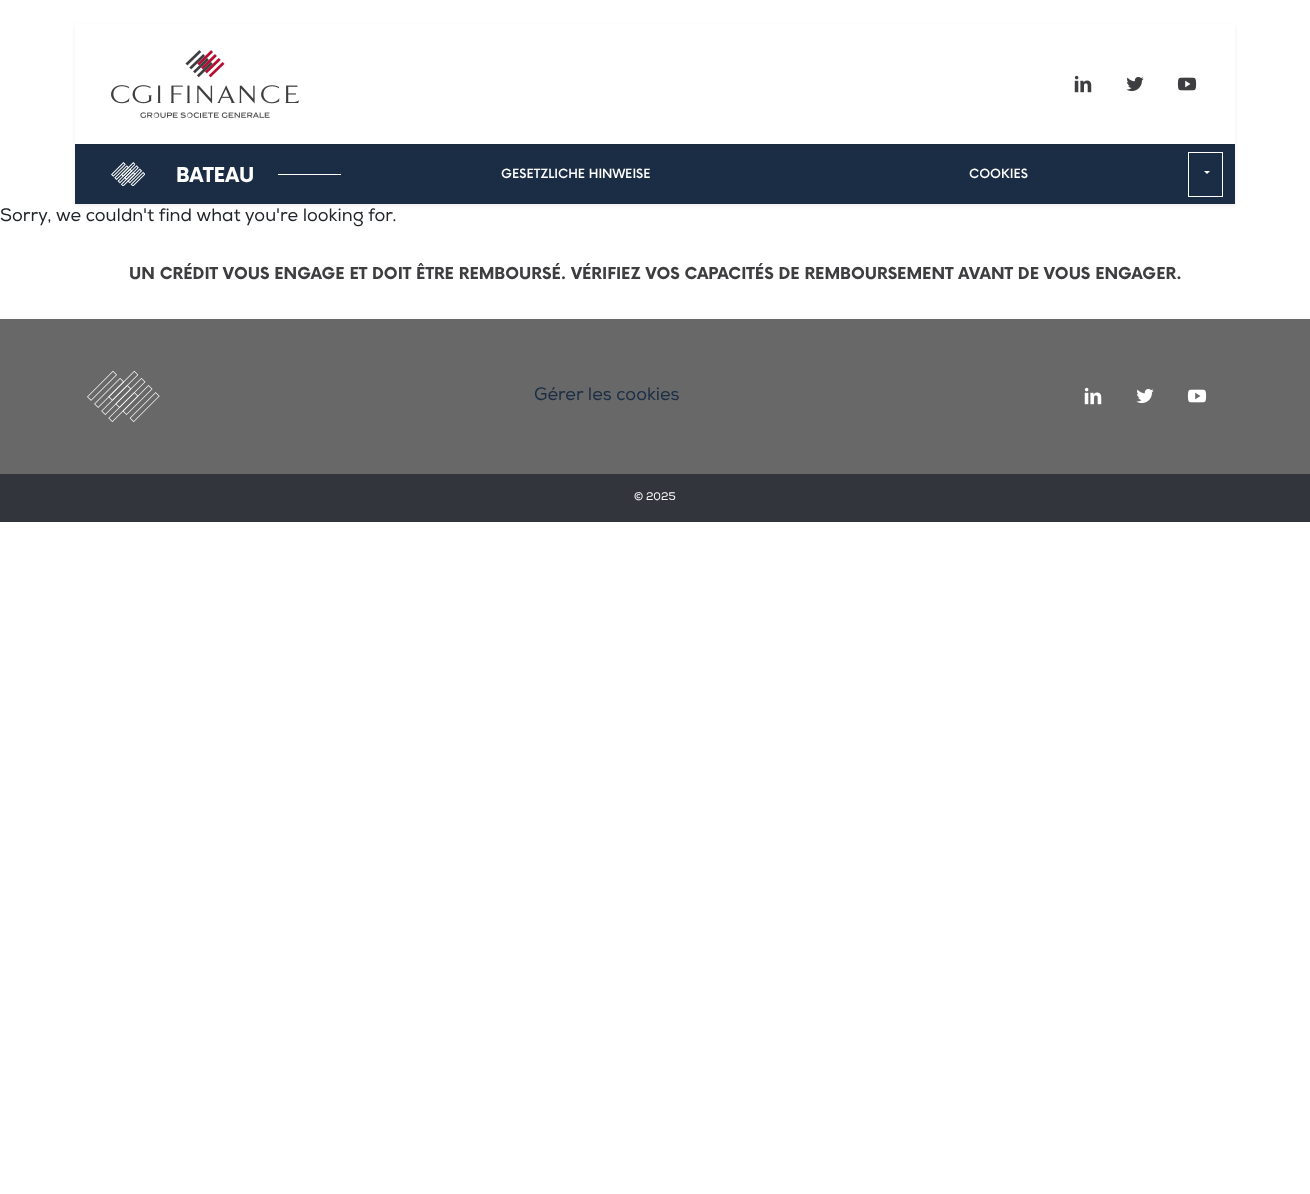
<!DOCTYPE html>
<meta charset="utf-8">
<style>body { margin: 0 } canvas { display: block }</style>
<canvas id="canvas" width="1310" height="1194"></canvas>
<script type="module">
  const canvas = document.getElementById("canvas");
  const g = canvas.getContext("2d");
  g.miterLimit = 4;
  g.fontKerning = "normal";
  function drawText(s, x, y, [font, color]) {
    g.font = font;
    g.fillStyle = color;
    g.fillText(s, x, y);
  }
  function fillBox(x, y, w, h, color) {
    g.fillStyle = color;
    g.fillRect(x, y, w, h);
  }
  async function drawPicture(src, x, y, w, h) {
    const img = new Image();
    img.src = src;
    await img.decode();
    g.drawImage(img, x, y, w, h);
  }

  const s1 = ["bold 20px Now", "#FFFFFF"];
  const s2 = ["500 12.5px Now", "#FFFFFF"];
  const s3 = ["18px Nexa", "#212529"];
  const s4 = ["bold 16px Now", "#3E3D40"];
  const s5 = ["18px Nexa", "#1B2D44"];
  const s6 = ["11px Nexa", "#FFFFFF"];

  fillBox(0, 0, 1310, 1194, "#FFFFFF");
  g.fillStyle = "rgba(0, 0, 0, 0.07)";
  g.filter = "blur(2px)";
  g.beginPath();
  g.rect(75, 146, 1160, 60);
  g.fill();
  g.filter = "none";
  fillBox(75, 144, 1160, 60, "#1B2D44");
  g.strokeStyle = "#FFFFFF";
  g.strokeRect(1188.5, 152.5, 34, 44);
  g.fillStyle = "rgba(0, 0, 0, 0.07)";
  g.filter = "blur(2px)";
  g.beginPath();
  g.rect(75, 26, 1160, 120);
  g.fill();
  g.filter = "none";
  fillBox(75, 24, 1160, 120, "#FFFFFF");
  await drawPicture("pic1.png", 111, 50, 188, 68);
  await drawPicture("pic2.png", 1074, 75, 18, 18);
  await drawPicture("pic3.png", 1126, 77, 18, 15);
  await drawPicture("pic4.png", 1177, 77, 20, 14);
  await drawPicture("pic5.png", 111, 162, 34, 24);
  drawText("BATEAU", 176, 182, s1);
  fillBox(278, 174, 63, 1, "#FFFFFF");
  drawText("GESETZLICHE HINWEISE", 501, 178, s2);
  drawText("COOKIES", 969, 178, s2);
  g.beginPath();
  g.moveTo(1204, 171);
  g.lineTo(1210, 171);
  g.lineTo(1207, 174);
  g.closePath();
  g.fill();
  drawText("Sorry, we couldn't find what you're looking for.", 0, 221, s3);
  drawText("UN CRÉDIT VOUS ENGAGE ET DOIT ÊTRE REMBOURSÉ. VÉRIFIEZ VOS CAPACITÉS DE REMBOURSEMENT AVANT DE VOUS ENGAGER.", 129, 279, s4);
  fillBox(0, 319, 1310, 155, "#686868");
  await drawPicture("pic6.png", 87, 370, 73, 52);
  drawText("Gérer les cookies", 534, 400, s5);
  await drawPicture("pic7.png", 1084, 387, 18, 18);
  await drawPicture("pic8.png", 1136, 389, 18, 15);
  await drawPicture("pic9.png", 1187, 389, 20, 14);
  fillBox(0, 474, 1310, 48, "#33353D");
  drawText("© 2025", 634, 500, s6);
</script>
